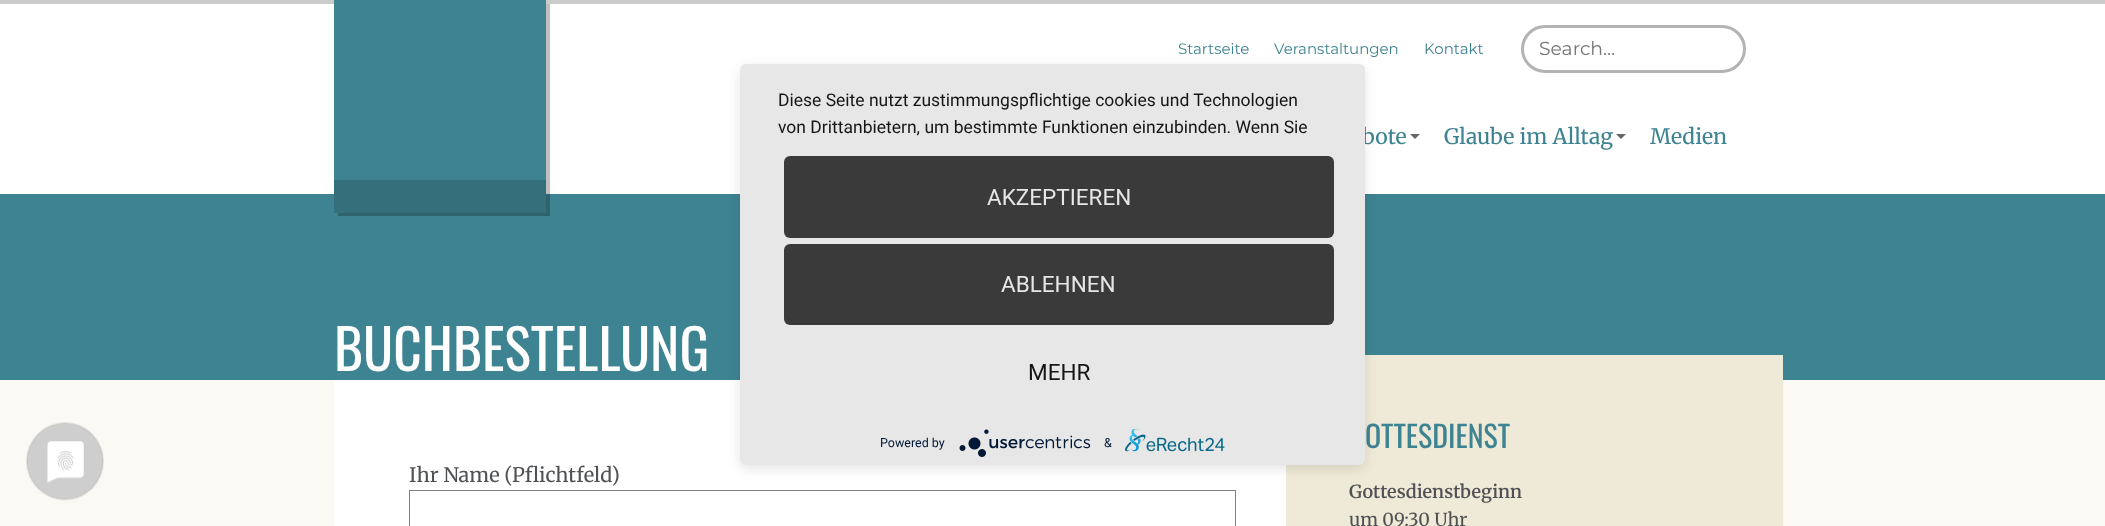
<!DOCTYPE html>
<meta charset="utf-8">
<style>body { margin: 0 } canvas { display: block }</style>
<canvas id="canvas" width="2105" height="526"></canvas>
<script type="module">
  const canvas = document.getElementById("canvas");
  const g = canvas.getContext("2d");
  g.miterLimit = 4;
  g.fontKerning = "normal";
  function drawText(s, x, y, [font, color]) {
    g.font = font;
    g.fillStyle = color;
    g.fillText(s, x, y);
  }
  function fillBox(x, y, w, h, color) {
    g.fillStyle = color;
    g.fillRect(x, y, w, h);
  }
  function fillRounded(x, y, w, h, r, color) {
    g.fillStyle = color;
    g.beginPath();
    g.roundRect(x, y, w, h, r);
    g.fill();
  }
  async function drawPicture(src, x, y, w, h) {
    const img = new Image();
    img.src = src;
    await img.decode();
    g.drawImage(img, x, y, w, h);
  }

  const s1 = ["15px Montserrat", "#3E8391"];
  const s2 = ["18.75px Montserrat", "#757575"];
  const s3 = ["21.25px Merriweather", "#3E8391"];
  const s4 = ["55.5px Oswald", "#FFFFFF"];
  const s5 = ["20px Merriweather", "#4F5254"];
  const s6 = ["30px Oswald", "#3E8391"];
  const s7 = ["600 18px Merriweather", "#4F5254"];
  const s8 = ["18px Merriweather", "#4F5254"];
  const s9 = ["17.5px Roboto", "#161616"];
  const s10 = ["22.5px Roboto", "#E6E6E6"];
  const s11 = ["22.5px Roboto", "#161616"];
  const s12 = ["12.5px Roboto", "#021836"];

  fillBox(0, 0, 2105, 526, "#FFFFFF");
  fillBox(0, 0, 2105, 4, "#CCCCCC");
  drawText("Startseite", 1178, 54, s1);
  drawText("Veranstaltungen", 1274, 54, s1);
  drawText("Kontakt", 1424, 54, s1);
  g.beginPath();
  g.roundRect(1522.5, 26.5, 222, 45, 22.5);
  g.strokeStyle = "#B3B3B3";
  g.lineWidth = 3;
  g.stroke();
  drawText("Search…", 1539, 55, s2);
  fillBox(0, 194, 2105, 186, "#3E8391");
  g.fillStyle = "rgba(0, 0, 0, 0.25)";
  g.beginPath();
  g.moveTo(338, 212);
  g.lineTo(338, 216);
  g.lineTo(550, 216);
  g.lineTo(550, 4);
  g.lineTo(546, 4);
  g.lineTo(546, 212);
  g.closePath();
  g.fill();
  fillBox(334, 0, 212, 180, "#3E8391");
  fillBox(334, 180, 212, 33, "#356F7B");
  drawText("bote", 1362, 144, s3);
  g.fillStyle = "#666666";
  g.beginPath();
  g.moveTo(1410, 134);
  g.lineTo(1420, 134);
  g.lineTo(1415, 139);
  g.closePath();
  g.fill();
  drawText("Glaube im Alltag", 1444, 144, s3);
  g.fillStyle = "#666666";
  g.beginPath();
  g.moveTo(1616, 134);
  g.lineTo(1626, 134);
  g.lineTo(1621, 139);
  g.closePath();
  g.fill();
  drawText("Medien", 1650, 144, s3);
  fillBox(0, 380, 2105, 146, "#FBF9F3");
  drawText("BUCHBESTELLUNG", 334, 371, s4);
  fillBox(334, 380, 952, 146, "#FFFFFF");
  drawText("Ihr Name (Pflichtfeld)", 409, 482, s5);
  g.strokeStyle = "#808080";
  g.lineWidth = 1;
  g.strokeRect(409.5, 490.5, 826, 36);
  fillBox(1286, 355, 497, 171, "#EFE9D7");
  drawText("OTTESDIENST", 1365, 448, s6);
  drawText("Gottesdienstbeginn", 1349, 498, s7);
  drawText("um 09:30 Uhr", 1349, 526, s8);
  g.fillStyle = "rgba(0, 0, 0, 0.1)";
  g.filter = "blur(6px)";
  g.beginPath();
  g.roundRect(740, 68, 625, 401, 6);
  g.fill();
  g.filter = "none";
  fillRounded(740, 64, 625, 401, 6, "#E7E7E7");
  drawText("Diese Seite nutzt zustimmungspflichtige cookies und Technologien", 778, 106, s9);
  drawText("von Drittanbietern, um bestimmte Funktionen einzubinden. Wenn Sie", 778, 133, s9);
  fillRounded(784, 156, 550, 82, 6, "#3A3A3A");
  drawText("AKZEPTIEREN", 987, 205, s10);
  fillRounded(784, 244, 550, 81, 6, "#3A3A3A");
  drawText("ABLEHNEN", 1001, 292, s10);
  drawText("MEHR", 1028, 380, s11);
  drawText("Powered by", 880, 447, s12);
  await drawPicture("pic1.png", 959, 429, 132, 28);
  drawText("&", 1104, 447, s12);
  await drawPicture("pic2.png", 1125, 429, 100, 23);
  await drawPicture("pic3.png", 26, 422, 78, 79);
</script>
